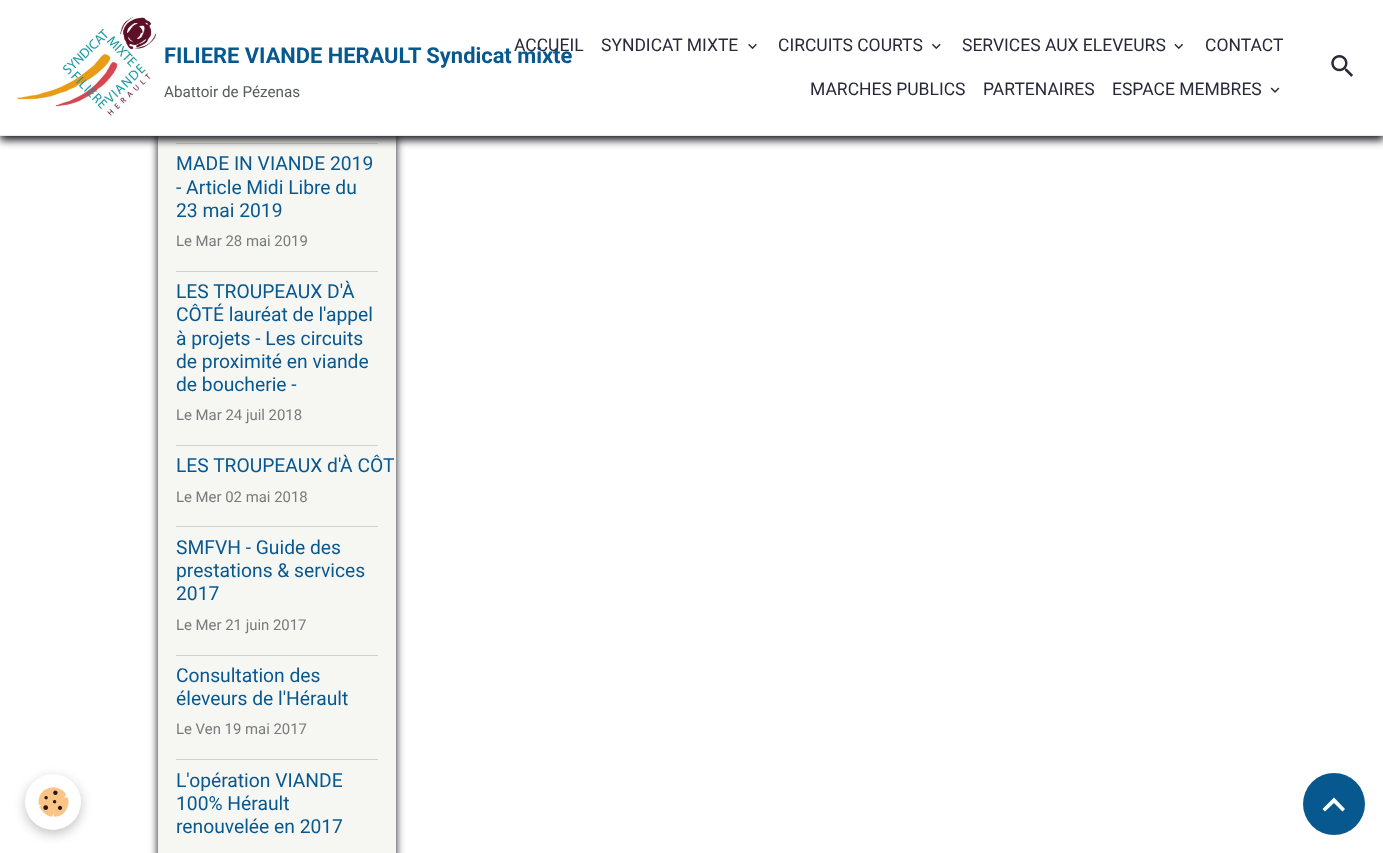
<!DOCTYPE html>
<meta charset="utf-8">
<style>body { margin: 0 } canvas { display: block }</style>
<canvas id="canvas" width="1383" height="853"></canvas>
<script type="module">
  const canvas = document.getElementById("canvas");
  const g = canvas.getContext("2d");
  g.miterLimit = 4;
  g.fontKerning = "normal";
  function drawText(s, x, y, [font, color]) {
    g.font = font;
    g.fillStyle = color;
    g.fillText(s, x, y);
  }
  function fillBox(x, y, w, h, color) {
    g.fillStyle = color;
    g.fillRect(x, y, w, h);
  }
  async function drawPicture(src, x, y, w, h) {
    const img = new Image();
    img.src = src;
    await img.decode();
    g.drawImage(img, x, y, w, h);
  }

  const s1 = ["bold 21.9px Roboto", "#085890"];
  const s2 = ["15.25px Roboto", "#595C5E"];
  const s3 = ["17.5px Roboto", "#29293A"];
  const s4 = ["19.25px Roboto", "#085890"];
  const s5 = ["14.9px Roboto", "#787B7C"];

  fillBox(0, 0, 1383, 853, "#FFFFFF");
  g.fillStyle = "#14141C";
  g.filter = "blur(4.5px)";
  g.beginPath();
  g.roundRect(158, -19, 238, 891, 5);
  g.fill();
  g.filter = "none";
  fillBox(158, 136, 238, 717, "#F6F6F3");
  fillBox(176, 143, 202, 1, "#D3D3C5");
  g.fillStyle = "#14141C";
  g.filter = "blur(4.5px)";
  g.beginPath();
  g.rect(0, 4, 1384, 136);
  g.fill();
  g.filter = "none";
  fillBox(0, 0, 1383, 135, "#FFFFFF");
  fillBox(0, 135, 1383, 1, "#E8E9EE");
  await drawPicture("pic1.png", 17, 17, 140, 99);
  drawText("FILIERE VIANDE HERAULT Syndicat mixte", 164, 63, s1);
  drawText("Abattoir de Pézenas", 164, 97, s2);
  drawText("ACCUEIL", 514, 51, s3);
  drawText("SYNDICAT MIXTE", 601, 51, s3);
  await drawPicture("pic2.png", 748, 43, 9, 7);
  drawText("CIRCUITS COURTS", 778, 51, s3);
  await drawPicture("pic3.png", 932, 43, 9, 7);
  drawText("SERVICES AUX ELEVEURS", 962, 51, s3);
  await drawPicture("pic4.png", 1174, 43, 9, 7);
  drawText("CONTACT", 1205, 51, s3);
  drawText("MARCHES PUBLICS", 810, 95, s3);
  drawText("PARTENAIRES", 983, 95, s3);
  drawText("ESPACE MEMBRES", 1112, 95, s3);
  await drawPicture("pic5.png", 1270, 87, 10, 6);
  await drawPicture("pic6.png", 1331, 55, 22, 22);
  g.fillStyle = "rgba(0, 0, 0, 0.24)";
  g.filter = "blur(6px)";
  g.beginPath();
  g.roundRect(25, 778, 56, 56, 28);
  g.fill();
  g.filter = "none";
  g.fillStyle = "#FFFFFF";
  g.beginPath();
  g.arc(53, 802, 28, 0, Math.PI * 2);
  g.fill();
  await drawPicture("pic7.png", 38, 787, 31, 30);
  drawText("MADE IN VIANDE 2019", 176, 170, s4);
  drawText("- Article Midi Libre du", 176, 194, s4);
  drawText("23 mai 2019", 176, 217, s4);
  drawText("Le Mar 28 mai 2019", 176, 246, s5);
  fillBox(176, 271, 202, 1, "#D3D3C5");
  drawText("LES TROUPEAUX D'À", 176, 298, s4);
  drawText("CÔTÉ lauréat de l'appel", 176, 321, s4);
  drawText("à projets - Les circuits", 176, 345, s4);
  drawText("de proximité en viande", 176, 368, s4);
  drawText("de boucherie -", 176, 391, s4);
  drawText("Le Mar 24 juil 2018", 176, 420, s5);
  fillBox(176, 445, 202, 1, "#D3D3C5");
  drawText("LES TROUPEAUX d'À CÔT", 176, 472, s4);
  drawText("Le Mer 02 mai 2018", 176, 502, s5);
  fillBox(176, 526, 202, 1, "#D3D3C5");
  drawText("SMFVH - Guide des", 176, 554, s4);
  drawText("prestations & services", 176, 577, s4);
  drawText("2017", 176, 600, s4);
  drawText("Le Mer 21 juin 2017", 176, 630, s5);
  fillBox(176, 655, 202, 1, "#D3D3C5");
  drawText("Consultation des", 176, 682, s4);
  drawText("éleveurs de l'Hérault", 176, 705, s4);
  drawText("Le Ven 19 mai 2017", 176, 734, s5);
  fillBox(176, 759, 202, 1, "#D3D3C5");
  drawText("L'opération VIANDE", 176, 787, s4);
  drawText("100% Hérault", 176, 810, s4);
  drawText("renouvelée en 2017", 176, 833, s4);
  g.beginPath();
  g.arc(1334, 804, 31, 0, Math.PI * 2);
  g.fill();
  g.fillStyle = "#FFFFFF";
  g.beginPath();
  g.moveTo(1334, 797.5);
  g.lineTo(1345, 809);
  g.lineTo(1342.5, 811.5);
  g.lineTo(1334, 803);
  g.lineTo(1325, 811.5);
  g.lineTo(1322.5, 809);
  g.closePath();
  g.fill();
</script>
